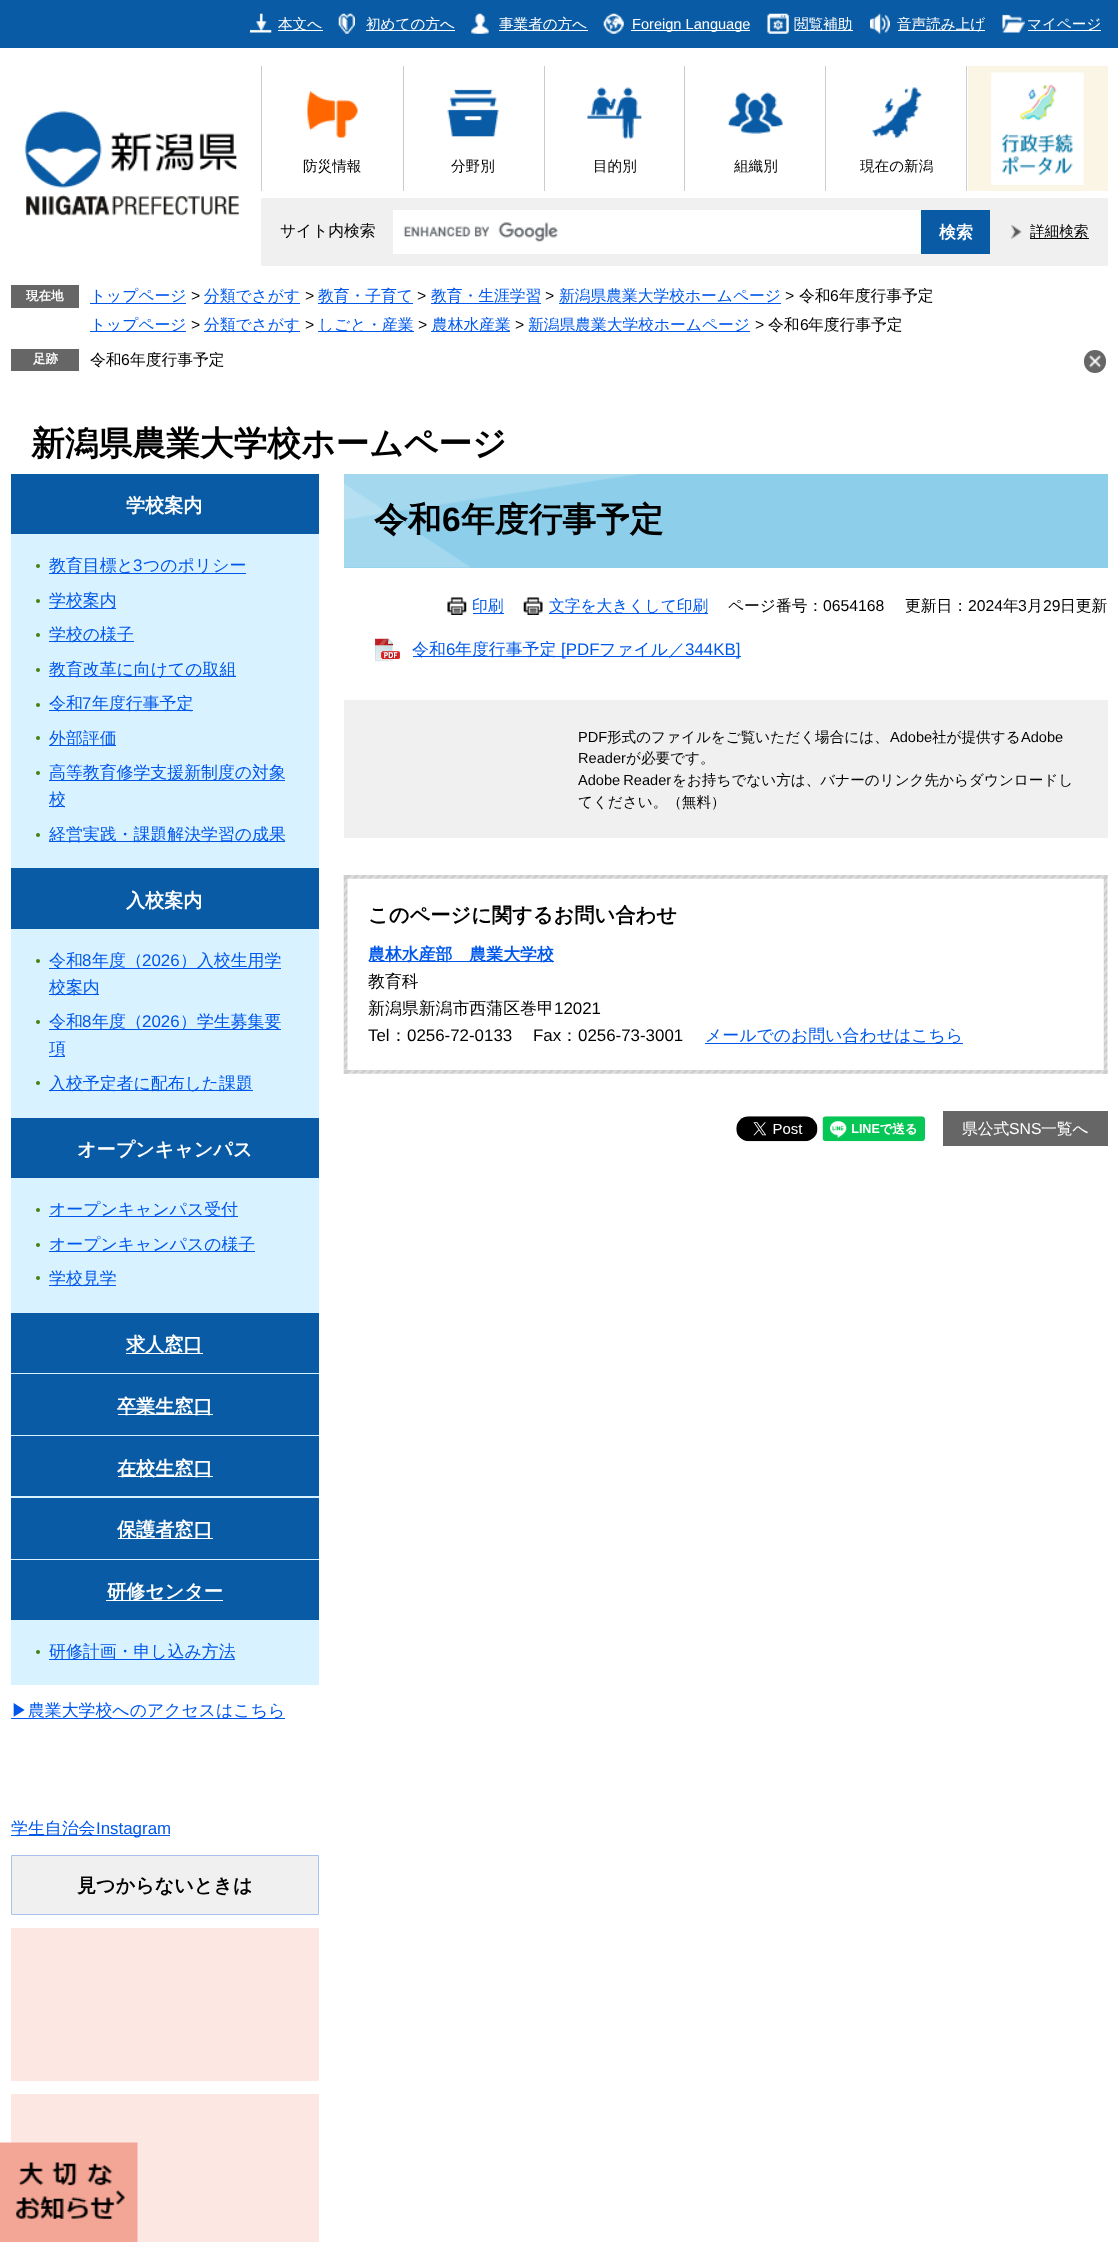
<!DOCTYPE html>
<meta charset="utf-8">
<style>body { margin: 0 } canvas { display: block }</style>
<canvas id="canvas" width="1118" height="2242"></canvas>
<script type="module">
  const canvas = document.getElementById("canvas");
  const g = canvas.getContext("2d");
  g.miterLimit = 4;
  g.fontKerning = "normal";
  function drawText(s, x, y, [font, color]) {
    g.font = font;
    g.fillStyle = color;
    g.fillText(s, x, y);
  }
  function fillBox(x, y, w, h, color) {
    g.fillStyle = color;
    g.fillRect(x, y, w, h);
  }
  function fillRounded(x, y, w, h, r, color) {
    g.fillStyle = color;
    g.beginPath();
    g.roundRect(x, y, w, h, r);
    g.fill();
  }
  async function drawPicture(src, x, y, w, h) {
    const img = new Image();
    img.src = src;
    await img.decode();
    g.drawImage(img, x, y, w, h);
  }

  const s1 = ["500 14.6px WenQuanYi Zen Hei", "#FFFFFF"];
  const s2 = ["14.6px Liberation Sans", "#FFFFFF"];
  const s3 = ["500 14.6px WenQuanYi Zen Hei", "#000000"];
  const s4 = ["500 15.75px WenQuanYi Zen Hei", "#000000"];
  const s5 = ["bold 16.9px WenQuanYi Zen Hei", "#FFFFFF"];
  const s6 = ["bold 12.5px WenQuanYi Zen Hei", "#FFFFFF"];
  const s7 = ["500 15.75px WenQuanYi Zen Hei", "#0058EA"];
  const s8 = ["15.75px Liberation Sans", "#000000"];
  const s9 = ["bold 33.75px WenQuanYi Zen Hei", "#000000"];
  const s10 = ["bold 19.1px WenQuanYi Zen Hei", "#FFFFFF"];
  const s11 = ["500 16.9px WenQuanYi Zen Hei", "#0058EA"];
  const s12 = ["16.9px Liberation Sans", "#0058EA"];
  const s13 = ["bold 19.1px WenQuanYi Zen Hei", "#000000"];
  const s14 = ["bold 33.75px Liberation Sans", "#000000"];
  const s15 = ["14.6px Liberation Sans", "#000000"];
  const s16 = ["bold 20.25px WenQuanYi Zen Hei", "#000000"];
  const s17 = ["bold 16.9px WenQuanYi Zen Hei", "#0058EA"];
  const s18 = ["500 16.9px WenQuanYi Zen Hei", "#000000"];
  const s19 = ["16.9px Liberation Sans", "#000000"];
  const s20 = ["500 15.75px WenQuanYi Zen Hei", "#FFFFFF"];
  const s21 = ["15.75px Liberation Sans", "#FFFFFF"];

  fillBox(0, 0, 1118, 2242, "#FFFFFF");
  fillBox(0, 0, 1118, 48, "#095BA5");
  await drawPicture("pic1.png", 250, 13, 22, 20);
  fillBox(278, 30, 45, 1, "#FFFFFF");
  drawText("本文へ", 278, 29, s1);
  await drawPicture("pic2.png", 338, 13, 17, 21);
  fillBox(366, 30, 89, 1, "#FFFFFF");
  drawText("初めての方へ", 366, 29, s1);
  await drawPicture("pic3.png", 471, 13, 18, 21);
  fillBox(499, 30, 89, 1, "#FFFFFF");
  drawText("事業者の方へ", 499, 29, s1);
  await drawPicture("pic4.png", 603, 13, 21, 21);
  fillBox(631, 30, 119, 1, "#FFFFFF");
  drawText("Foreign Language", 632, 29, s2);
  await drawPicture("pic5.png", 767, 13, 22, 21);
  fillBox(795, 30, 58, 1, "#FFFFFF");
  drawText("閲覧補助", 794, 29, s1);
  await drawPicture("pic6.png", 870, 13, 20, 21);
  fillBox(898, 30, 87, 1, "#FFFFFF");
  drawText("音声読み上げ", 897, 29, s1);
  await drawPicture("pic7.png", 1002, 14, 23, 19);
  fillBox(1028, 30, 73, 1, "#FFFFFF");
  drawText("マイページ", 1027, 29, s1);
  await drawPicture("pic8.png", 24, 111, 215, 105);
  fillBox(261, 66, 1, 125, "#CCCCCC");
  await drawPicture("pic9.png", 307, 91, 51, 47);
  drawText("防災情報", 303, 171, s3);
  fillBox(403, 66, 1, 125, "#CCCCCC");
  await drawPicture("pic10.png", 447, 89, 52, 48);
  drawText("分野別", 451, 171, s3);
  fillBox(544, 66, 1, 125, "#CCCCCC");
  await drawPicture("pic11.png", 587, 87, 55, 52);
  drawText("目的別", 593, 171, s3);
  fillBox(684, 66, 1, 125, "#CCCCCC");
  await drawPicture("pic12.png", 728, 92, 55, 42);
  drawText("組織別", 734, 171, s3);
  fillBox(825, 66, 1, 125, "#CCCCCC");
  await drawPicture("pic13.png", 872, 87, 50, 51);
  drawText("現在の新潟", 860, 171, s3);
  fillBox(966, 66, 1, 125, "#CCCCCC");
  fillBox(968, 66, 140, 125, "#FBF5E5");
  await drawPicture("pic14.png", 991, 72, 93, 113);
  fillBox(261, 198, 847, 68, "#F0F0F0");
  drawText("サイト内検索", 280, 236, s4);
  fillBox(393, 210, 528, 44, "#FFFFFF");
  await drawPicture("pic15.png", 403, 222, 155, 20);
  fillBox(921, 210, 69, 44, "#095BA5");
  drawText("検索", 939, 238, s5);
  await drawPicture("pic16.png", 1011, 225, 11, 14);
  fillBox(1030, 238, 59, 1, "#000000");
  drawText("詳細検索", 1030, 236, s3);
  fillBox(11, 285, 68, 23, "#666666");
  drawText("現在地", 26, 300, s6);
  drawText("トップページ", 90, 301, s7);
  fillBox(90, 303, 96, 1, "#0058EA");
  drawText(">", 191, 301, s8);
  fillBox(204, 303, 96, 1, "#0058EA");
  drawText("分類でさがす", 204, 301, s7);
  drawText(">", 305, 301, s8);
  fillBox(318, 303, 95, 1, "#0058EA");
  drawText("教育・子育て", 318, 301, s7);
  drawText(">", 417, 301, s8);
  fillBox(431, 303, 110, 1, "#0058EA");
  drawText("教育・生涯学習", 431, 301, s7);
  drawText(">", 545, 301, s8);
  fillBox(559, 303, 222, 1, "#0058EA");
  drawText("新潟県農業大学校ホームページ", 559, 301, s7);
  drawText(">", 785, 301, s8);
  drawText("令和", 799, 301, s4);
  drawText("6", 830, 301, s8);
  drawText("年度行事予定", 839, 301, s4);
  fillBox(90, 331, 96, 1, "#0058EA");
  drawText("トップページ", 90, 330, s7);
  drawText(">", 191, 330, s8);
  fillBox(204, 331, 96, 1, "#0058EA");
  drawText("分類でさがす", 204, 330, s7);
  drawText(">", 305, 330, s8);
  fillBox(318, 331, 96, 1, "#0058EA");
  drawText("しごと・産業", 318, 330, s7);
  drawText(">", 418, 330, s8);
  fillBox(431, 331, 79, 1, "#0058EA");
  drawText("農林水産業", 432, 330, s7);
  drawText(">", 515, 330, s8);
  fillBox(529, 331, 221, 1, "#0058EA");
  drawText("新潟県農業大学校ホームページ", 528, 330, s7);
  drawText(">", 755, 330, s8);
  drawText("令和", 768, 330, s4);
  drawText("6", 800, 330, s8);
  drawText("年度行事予定", 808, 330, s4);
  fillBox(11, 349, 68, 22, "#666666");
  drawText("足跡", 33, 363, s6);
  drawText("令和", 90, 365, s4);
  drawText("6", 121, 365, s8);
  drawText("年度行事予定", 130, 365, s4);
  fillRounded(1084, 350, 22, 23, 11, "#666666");
  await drawPicture("pic17.png", 1088, 355, 14, 13);
  drawText("新潟県農業大学校ホームページ", 31, 455, s9);
  fillBox(11, 534, 308, 1151, "#D9F2FF");
  fillBox(11, 474, 308, 60, "#095BA5");
  drawText("学校案内", 126, 512, s10);
  g.fillStyle = "#448211";
  g.beginPath();
  g.arc(38, 566, 2, 0, Math.PI * 2);
  g.fill();
  fillBox(49, 573, 197, 1, "#0058EA");
  drawText("教育目標と", 49, 571, s11);
  drawText("3", 133, 571, s12);
  drawText("つのポリシー", 143, 571, s11);
  g.fillStyle = "#448211";
  g.beginPath();
  g.arc(38, 601, 2, 0, Math.PI * 2);
  g.fill();
  fillBox(49, 608, 67, 1, "#0058EA");
  drawText("学校案内", 49, 606, s11);
  g.fillStyle = "#448211";
  g.beginPath();
  g.arc(38, 635, 2, 0, Math.PI * 2);
  g.fill();
  fillBox(49, 641, 85, 1, "#0058EA");
  drawText("学校の様子", 49, 640, s11);
  g.fillStyle = "#448211";
  g.beginPath();
  g.arc(38, 670, 2, 0, Math.PI * 2);
  g.fill();
  fillBox(49, 676, 187, 1, "#0058EA");
  drawText("教育改革に向けての取組", 49, 675, s11);
  g.fillStyle = "#448211";
  g.beginPath();
  g.arc(38, 705, 2, 0, Math.PI * 2);
  g.fill();
  fillBox(49, 710, 144, 1, "#0058EA");
  drawText("令和", 49, 709, s11);
  drawText("7", 82, 709, s12);
  drawText("年度行事予定", 92, 709, s11);
  g.fillStyle = "#448211";
  g.beginPath();
  g.arc(38, 738, 2, 0, Math.PI * 2);
  g.fill();
  fillBox(49, 745, 67, 1, "#0058EA");
  drawText("外部評価", 49, 744, s11);
  g.fillStyle = "#448211";
  g.beginPath();
  g.arc(38, 773, 2, 0, Math.PI * 2);
  g.fill();
  fillBox(49, 780, 236, 1, "#0058EA");
  drawText("高等教育修学支援新制度の対象", 49, 778, s11);
  fillBox(49, 806, 16, 1, "#0058EA");
  drawText("校", 49, 805, s11);
  g.fillStyle = "#448211";
  g.beginPath();
  g.arc(38, 835, 2, 0, Math.PI * 2);
  g.fill();
  fillBox(49, 841, 236, 1, "#0058EA");
  drawText("経営実践・課題解決学習の成果", 49, 840, s11);
  fillBox(11, 868, 308, 61, "#095BA5");
  drawText("入校案内", 126, 907, s10);
  g.fillStyle = "#448211";
  g.beginPath();
  g.arc(38, 961, 2, 0, Math.PI * 2);
  g.fill();
  fillBox(49, 968, 232, 1, "#0058EA");
  drawText("令和", 49, 966, s11);
  drawText("8", 82, 966, s12);
  drawText("年度（", 92, 966, s11);
  drawText("2026", 142, 966, s12);
  drawText("）入校生用学", 180, 966, s11);
  fillBox(49, 994, 50, 1, "#0058EA");
  drawText("校案内", 49, 993, s11);
  g.fillStyle = "#448211";
  g.beginPath();
  g.arc(38, 1022, 2, 0, Math.PI * 2);
  g.fill();
  fillBox(49, 1029, 232, 1, "#0058EA");
  drawText("令和", 49, 1027, s11);
  drawText("8", 82, 1027, s12);
  drawText("年度（", 92, 1027, s11);
  drawText("2026", 142, 1027, s12);
  drawText("）学生募集要", 180, 1027, s11);
  fillBox(49, 1056, 16, 1, "#0058EA");
  drawText("項", 49, 1054, s11);
  g.fillStyle = "#448211";
  g.beginPath();
  g.arc(38, 1083, 2, 0, Math.PI * 2);
  g.fill();
  fillBox(49, 1090, 204, 1, "#0058EA");
  drawText("入校予定者に配布した課題", 49, 1089, s11);
  fillBox(11, 1118, 308, 60, "#095BA5");
  drawText("オープンキャンパス", 77, 1156, s10);
  g.fillStyle = "#448211";
  g.beginPath();
  g.arc(38, 1210, 2, 0, Math.PI * 2);
  g.fill();
  fillBox(49, 1216, 189, 1, "#0058EA");
  drawText("オープンキャンパス受付", 49, 1215, s11);
  g.fillStyle = "#448211";
  g.beginPath();
  g.arc(38, 1245, 2, 0, Math.PI * 2);
  g.fill();
  fillBox(49, 1251, 206, 1, "#0058EA");
  drawText("オープンキャンパスの様子", 49, 1250, s11);
  g.fillStyle = "#448211";
  g.beginPath();
  g.arc(38, 1278, 2, 0, Math.PI * 2);
  g.fill();
  fillBox(49, 1285, 67, 1, "#0058EA");
  drawText("学校見学", 49, 1284, s11);
  fillBox(11, 1313, 308, 60, "#095BA5");
  fillBox(126, 1353, 77, 1, "#FFFFFF");
  drawText("求人窓口", 126, 1351, s10);
  fillBox(11, 1374, 308, 61, "#095BA5");
  fillBox(118, 1414, 95, 1, "#FFFFFF");
  drawText("卒業生窓口", 117, 1413, s10);
  fillBox(11, 1436, 308, 60, "#095BA5");
  fillBox(118, 1476, 95, 1, "#FFFFFF");
  drawText("在校生窓口", 117, 1475, s10);
  fillBox(11, 1498, 308, 61, "#095BA5");
  fillBox(118, 1538, 95, 1, "#FFFFFF");
  drawText("保護者窓口", 117, 1536, s10);
  fillBox(11, 1560, 308, 60, "#095BA5");
  fillBox(106, 1600, 117, 1, "#FFFFFF");
  drawText("研修センター", 107, 1598, s10);
  g.fillStyle = "#448211";
  g.beginPath();
  g.arc(38, 1652, 2, 0, Math.PI * 2);
  g.fill();
  fillBox(49, 1659, 186, 1, "#0058EA");
  drawText("研修計画・申し込み方法", 49, 1657, s11);
  fillBox(11, 1718, 274, 1, "#0058EA");
  drawText("▶農業大学校へのアクセスはこちら", 11, 1716, s11);
  fillBox(11, 1835, 159, 1, "#0058EA");
  drawText("学生自治会", 11, 1834, s11);
  drawText("Instagram", 96, 1834, s12);
  g.fillStyle = "#F0F0F0";
  g.beginPath();
  g.rect(11.5, 1855.5, 307, 59);
  g.fill();
  g.strokeStyle = "#A8C2EE";
  g.stroke();
  drawText("見つからないときは", 77, 1892, s13);
  fillBox(11, 1928, 308, 153, "#FCE7E2");
  fillBox(11, 2094, 308, 148, "#FCE7E2");
  fillBox(344, 474, 764, 94, "#8DCFEB");
  await drawPicture("pic18.png", 344, 474, 295, 94);
  drawText("令和", 374, 531, s9);
  drawText("6", 442, 531, s14);
  drawText("年度行事予定", 461, 531, s9);
  await drawPicture("pic19.png", 447, 597, 20, 18);
  fillBox(473, 613, 31, 1, "#0058EA");
  drawText("印刷", 472, 611, s7);
  await drawPicture("pic20.png", 523, 597, 20, 18);
  fillBox(549, 613, 159, 1, "#0058EA");
  drawText("文字を大きくして印刷", 549, 611, s7);
  drawText("ページ番号：", 728, 611, s4);
  drawText("0654168", 823, 611, s8);
  drawText("更新日：", 905, 611, s4);
  drawText("2024", 968, 611, s8);
  drawText("年", 1003, 611, s4);
  drawText("3", 1018, 611, s8);
  drawText("月", 1027, 611, s4);
  drawText("29", 1043, 611, s8);
  drawText("日更新", 1060, 611, s4);
  await drawPicture("pic21.png", 375, 638, 25, 24);
  fillBox(413, 656, 328, 1, "#0058EA");
  drawText("令和", 412, 655, s11);
  drawText("6", 446, 655, s12);
  drawText("年度行事予定", 455, 655, s11);
  drawText("[PDF", 561, 655, s12);
  drawText("ファイル／", 599, 655, s11);
  drawText("344KB]", 685, 655, s12);
  fillBox(344, 700, 764, 138, "#F0F0F0");
  drawText("PDF", 578, 742, s15);
  drawText("形式のファイルをご覧いただく場合には、", 607, 742, s3);
  drawText("Adobe", 890, 742, s15);
  drawText("社が提供する", 932, 742, s3);
  drawText("Adobe", 1021, 742, s15);
  drawText("Reader", 578, 763, s15);
  drawText("が必要です。", 626, 763, s3);
  g.wordSpacing = "-1px";
  drawText("Adobe Reader", 578, 785, s15);
  g.wordSpacing = "0px";
  drawText("をお持ちでない方は、バナーのリンク先からダウンロードし", 672, 785, s3);
  drawText("てください。（無料）", 578, 807, s3);
  await drawPicture("pic22.png", 343, 875, 765, 199);
  drawText("このページに関するお問い合わせ", 368, 922, s16);
  fillBox(369, 961, 185, 1, "#0058EA");
  drawText("農林水産部　農業大学校", 368, 960, s17);
  drawText("教育科", 368, 987, s18);
  drawText("新潟県新潟市西蒲区巻甲", 368, 1014, s18);
  drawText("12021", 554, 1014, s19);
  drawText("Tel", 368, 1041, s19);
  drawText("：", 390, 1041, s18);
  drawText("0256-72-0133", 407, 1041, s19);
  drawText("Fax", 533, 1041, s19);
  drawText("：", 561, 1041, s18);
  drawText("0256-73-3001", 578, 1041, s19);
  fillBox(705, 1043, 258, 1, "#0058EA");
  drawText("メールでのお問い合わせはこちら", 705, 1041, s11);
  await drawPicture("pic23.png", 736, 1116, 82, 26);
  await drawPicture("pic24.png", 822, 1116, 103, 26);
  fillBox(943, 1111, 165, 35, "#666666");
  drawText("県公式", 962, 1134, s20);
  drawText("SNS", 1009, 1134, s21);
  drawText("一覧へ", 1041, 1134, s20);
  await drawPicture("pic25.png", 0, 2142, 138, 100);
  await drawPicture("pic26.png", 116, 2190, 9, 15);
</script>
